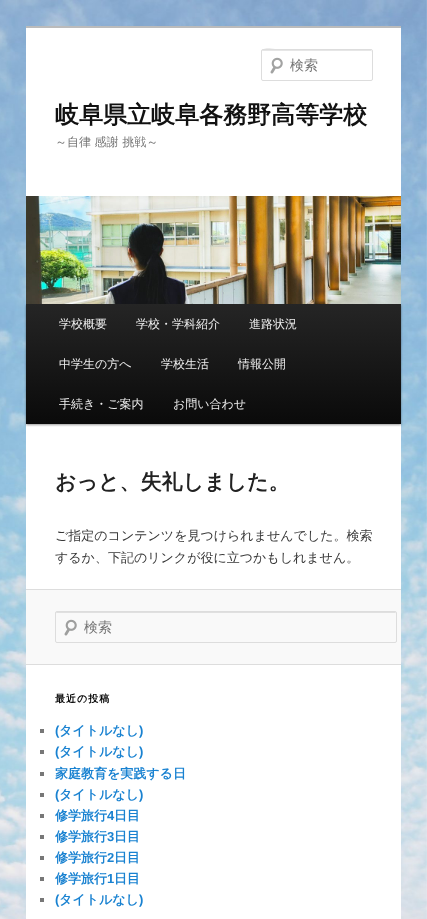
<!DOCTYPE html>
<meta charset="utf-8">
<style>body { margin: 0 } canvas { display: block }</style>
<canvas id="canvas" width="427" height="919"></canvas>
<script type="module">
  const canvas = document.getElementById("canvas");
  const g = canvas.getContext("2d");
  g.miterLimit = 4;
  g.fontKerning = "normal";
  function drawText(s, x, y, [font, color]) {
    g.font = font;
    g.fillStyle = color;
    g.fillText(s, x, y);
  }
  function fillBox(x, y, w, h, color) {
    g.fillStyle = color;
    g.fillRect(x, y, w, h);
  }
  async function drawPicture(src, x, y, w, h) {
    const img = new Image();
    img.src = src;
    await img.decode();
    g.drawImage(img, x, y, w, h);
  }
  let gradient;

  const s1 = ["500 14px WenQuanYi Zen Hei", "#757575"];
  const s2 = ["bold 24px WenQuanYi Zen Hei", "#111111"];
  const s3 = ["500 12px WenQuanYi Zen Hei", "#757575"];
  const s4 = ["500 12px WenQuanYi Zen Hei", "#EEEEEE"];
  const s5 = ["bold 21px WenQuanYi Zen Hei", "#222222"];
  const s6 = ["500 13px WenQuanYi Zen Hei", "#373737"];
  const s7 = ["bold 10px WenQuanYi Zen Hei", "#000000"];
  const s8 = ["bold 13px Liberation Sans", "#1982D1"];
  const s9 = ["bold 13px WenQuanYi Zen Hei", "#1982D1"];

  fillBox(0, 0, 427, 919, "#FFFFFF");
  await drawPicture("pic1.png", 0, 0, 427, 919);
  fillBox(26, 28, 375, 891, "#FFFFFF");
  fillBox(26, 26, 375, 2, "#BBBBBB");
  await drawPicture("pic2.png", 270, 57, 13, 17);
  g.fillStyle = "#E6E6E6";
  g.beginPath();
  g.moveTo(263, 51);
  g.lineTo(372, 51);
  g.lineTo(372, 52);
  g.lineTo(371, 50);
  g.lineTo(281, 50);
  g.bezierCurveTo(277, 50, 262, 45, 262, 52);
  g.bezierCurveTo(262, 51, 262, 51, 263, 51);
  g.closePath();
  g.fill();
  g.beginPath();
  g.roundRect(261.5, 49.5, 111, 31, 1.5);
  g.strokeStyle = "#DDDDDD";
  g.stroke();
  drawText("検索", 290, 70, s1);
  drawText("岐阜県立岐阜各務野高等学校", 55, 123, s2);
  drawText("～自律 感謝 挑戦～", 55, 146, s3);
  g.fillStyle = "rgba(0, 0, 0, 0.4)";
  g.filter = "blur(1px)";
  g.beginPath();
  g.rect(26, 305, 375, 120);
  g.fill();
  g.filter = "none";
  await drawPicture("pic3.png", 26, 196, 375, 108);
  gradient = g.createLinearGradient(214, 304, 214, 424);
  gradient.addColorStop(0, "#252525");
  gradient.addColorStop(1, "#0A0A0A");
  g.fillStyle = gradient;
  g.fillRect(26, 304, 375, 120);
  drawText("学校概要", 59, 328, s4);
  drawText("学校・学科紹介", 136, 328, s4);
  drawText("進路状況", 249, 328, s4);
  drawText("中学生の方へ", 59, 368, s4);
  drawText("学校生活", 161, 368, s4);
  drawText("情報公開", 238, 368, s4);
  drawText("手続き・ご案内", 59, 408, s4);
  drawText("お問い合わせ", 173, 408, s4);
  drawText("おっと、失礼しました。", 55, 489, s5);
  drawText("ご指定のコンテンツを見つけられませんでした。検索", 55, 540, s6);
  drawText("するか、下記のリンクが役に立つかもしれません。", 55, 562, s6);
  fillBox(26, 590, 375, 74, "#F9F9F9");
  fillBox(26, 589, 375, 1, "#DDDDDD");
  fillBox(26, 664, 375, 1, "#DDDDDD");
  await drawPicture("pic4.png", 64, 619, 13, 17);
  g.fillStyle = "#E0E0E0";
  g.beginPath();
  g.moveTo(57, 613);
  g.lineTo(395, 613);
  g.bezierCurveTo(396, 613, 396, 613, 396, 614);
  g.lineTo(396, 613);
  g.lineTo(395, 612);
  g.lineTo(57, 612);
  g.bezierCurveTo(56, 612, 56, 613, 56, 614);
  g.bezierCurveTo(56, 613, 56, 613, 57, 613);
  g.closePath();
  g.fill();
  g.beginPath();
  g.roundRect(55.5, 611.5, 341, 31, 1.5);
  g.stroke();
  drawText("検索", 84, 632, s1);
  g.letterSpacing = "1px";
  drawText("最近の投稿", 55, 702, s7);
  fillBox(40, 729, 4, 4, "#777777");
  g.letterSpacing = "0px";
  drawText("(", 55, 735, s8);
  drawText("タイトルなし", 59, 735, s9);
  drawText(")", 139, 735, s8);
  fillBox(40, 750, 4, 4, "#777777");
  drawText("(", 55, 756, s8);
  drawText("タイトルなし", 59, 756, s9);
  drawText(")", 139, 756, s8);
  fillBox(40, 772, 4, 4, "#777777");
  drawText("家庭教育を実践する日", 55, 778, s9);
  fillBox(40, 793, 4, 4, "#777777");
  drawText("(", 55, 799, s8);
  drawText("タイトルなし", 59, 799, s9);
  drawText(")", 139, 799, s8);
  fillBox(40, 814, 4, 4, "#777777");
  drawText("修学旅行", 55, 820, s9);
  drawText("4", 107, 820, s8);
  drawText("日目", 114, 820, s9);
  fillBox(40, 835, 4, 4, "#777777");
  drawText("修学旅行", 55, 841, s9);
  drawText("3", 107, 841, s8);
  drawText("日目", 114, 841, s9);
  fillBox(40, 856, 4, 4, "#777777");
  drawText("修学旅行", 55, 862, s9);
  drawText("2", 107, 862, s8);
  drawText("日目", 114, 862, s9);
  fillBox(40, 877, 4, 4, "#777777");
  drawText("修学旅行", 55, 883, s9);
  drawText("1", 107, 883, s8);
  drawText("日目", 114, 883, s9);
  fillBox(40, 898, 4, 4, "#777777");
  drawText("(", 55, 904, s8);
  drawText("タイトルなし", 59, 904, s9);
  drawText(")", 139, 904, s8);
</script>
